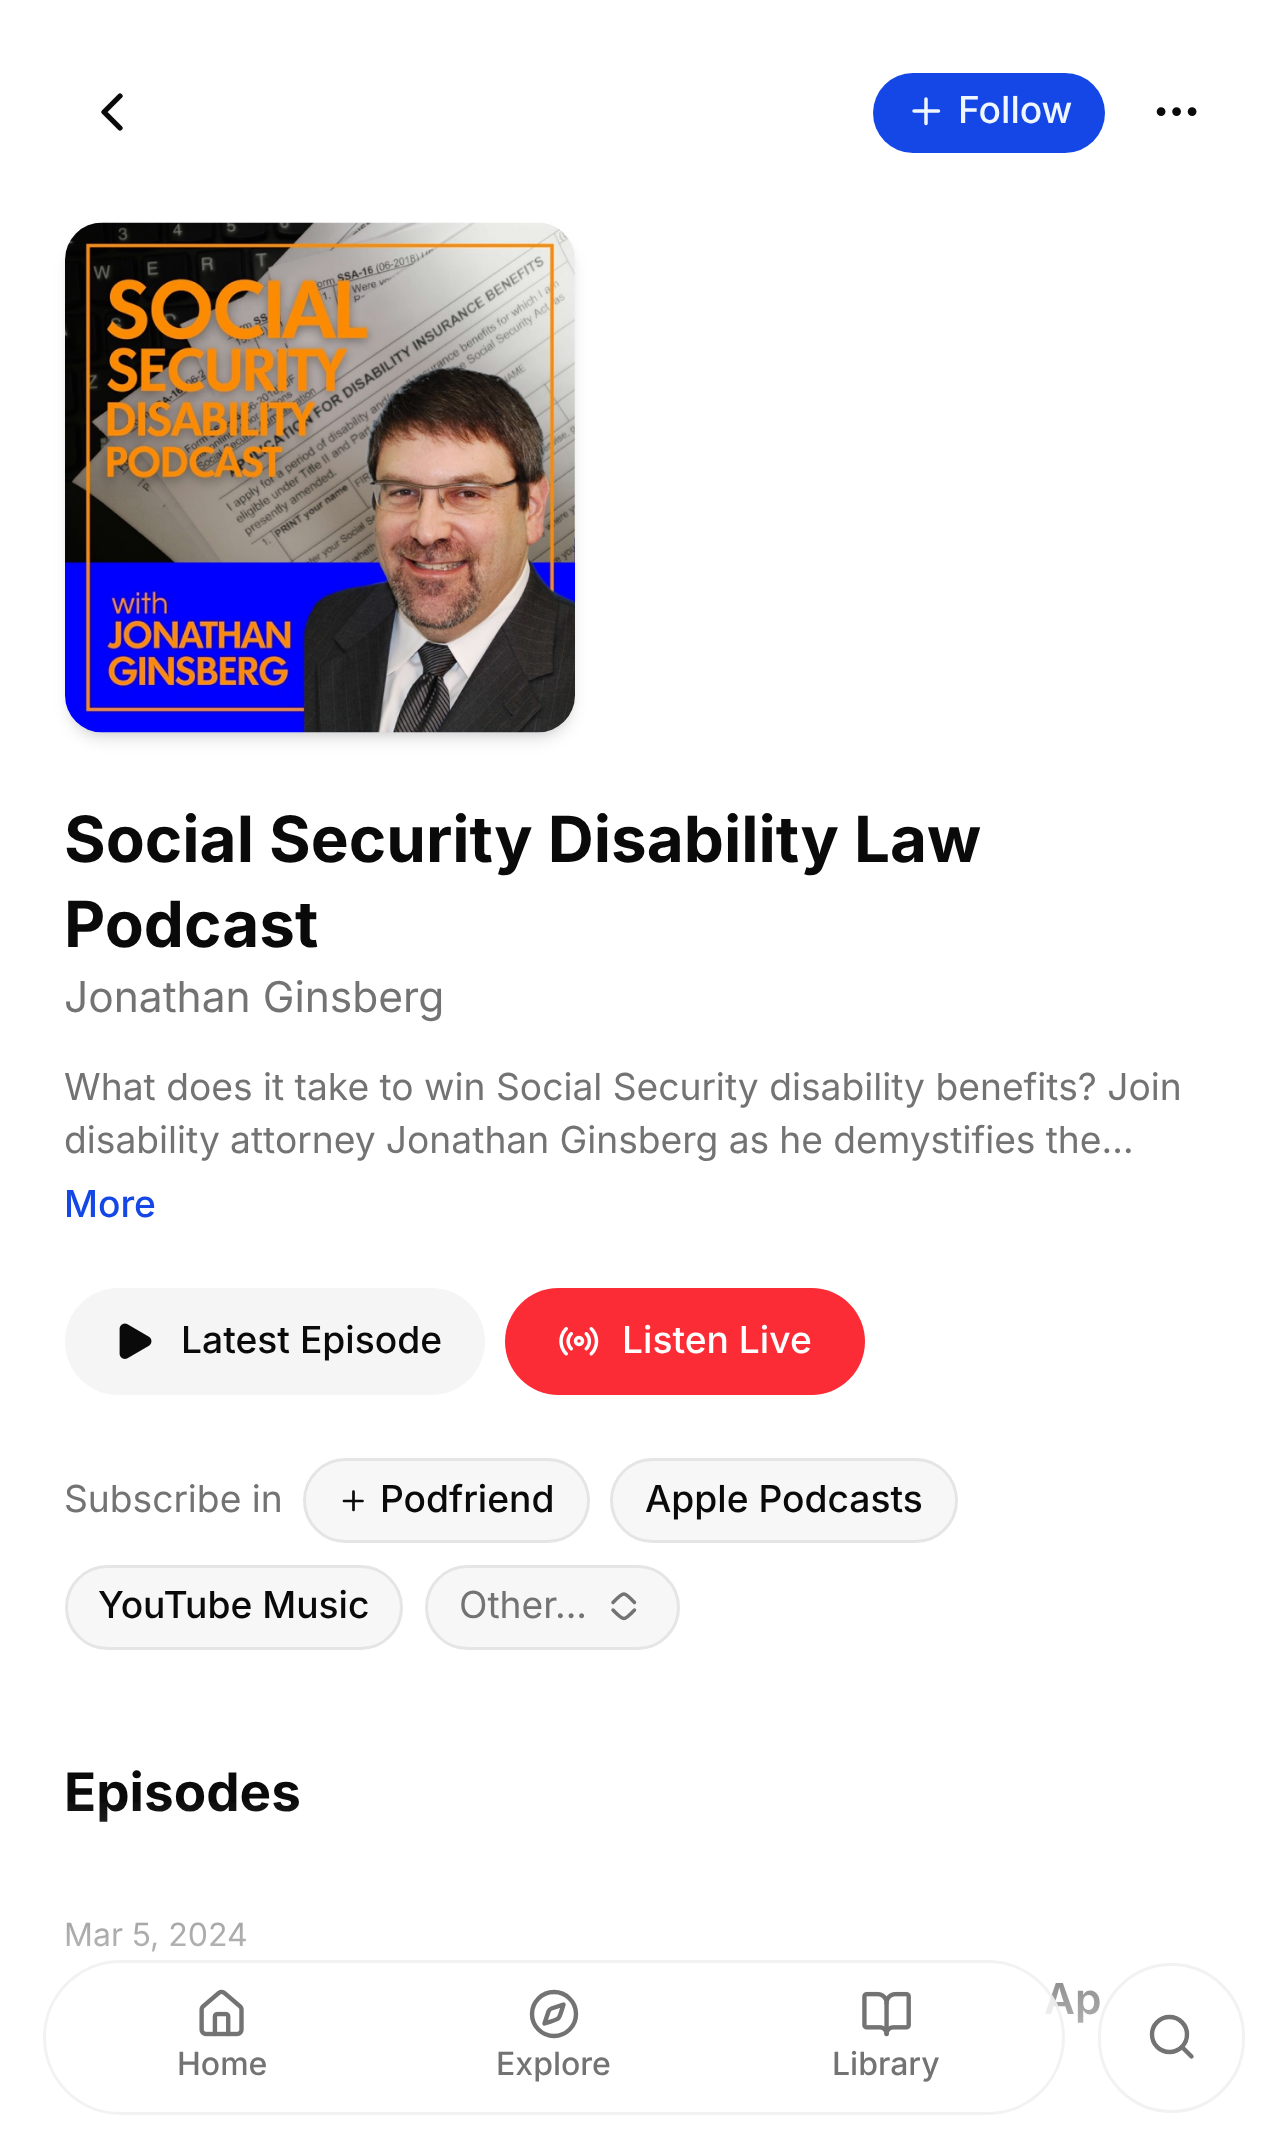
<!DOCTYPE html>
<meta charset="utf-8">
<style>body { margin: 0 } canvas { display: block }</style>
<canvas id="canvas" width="1286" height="2134"></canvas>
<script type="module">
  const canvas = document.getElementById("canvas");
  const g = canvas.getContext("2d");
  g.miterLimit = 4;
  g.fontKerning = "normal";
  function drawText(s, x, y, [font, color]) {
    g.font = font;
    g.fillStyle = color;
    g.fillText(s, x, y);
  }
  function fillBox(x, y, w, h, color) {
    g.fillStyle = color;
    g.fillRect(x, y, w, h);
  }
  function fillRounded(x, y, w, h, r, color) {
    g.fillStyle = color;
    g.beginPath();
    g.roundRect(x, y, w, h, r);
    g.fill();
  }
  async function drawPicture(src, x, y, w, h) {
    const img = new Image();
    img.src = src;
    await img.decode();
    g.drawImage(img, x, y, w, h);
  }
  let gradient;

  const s1 = ["500 37.2px Inter", "#EFF6FF"];
  const s2 = ["bold 63.75px Inter", "#0A0A0A"];
  const s3 = ["42.5px Inter", "#737373"];
  const s4 = ["37.2px Inter", "#737373"];
  const s5 = ["500 37.2px Inter", "#1447E6"];
  const s6 = ["500 37.2px Inter", "#0A0A0A"];
  const s7 = ["500 37.2px Inter", "#FFFFFF"];
  const s8 = ["bold 53px Inter", "#0A0A0A"];
  const s9 = ["32px Inter", "#737373"];
  const s10 = ["600 42.5px Inter", "#0A0A0A"];
  const s11 = ["500 32px Inter", "#737373"];

  fillBox(0, 0, 1286, 2134, "#FFFFFF");
  g.beginPath();
  g.moveTo(120, 128);
  g.lineTo(104, 112);
  g.lineTo(120, 96);
  g.strokeStyle = "#0A0A0A";
  g.lineWidth = 5.3;
  g.lineCap = "round";
  g.lineJoin = "round";
  g.stroke();
  fillRounded(873, 73, 232, 80, 40, "#1447E6");
  g.beginPath();
  g.moveTo(914, 111);
  g.lineTo(938.5, 111);
  g.moveTo(926, 99);
  g.lineTo(926, 123.5);
  g.strokeStyle = "#EFF6FF";
  g.lineWidth = 3.5;
  g.stroke();
  drawText("Follow", 958, 123, s1);
  g.beginPath();
  g.arc(1176.6, 111.6, 2.2, 0, Math.PI * 2);
  g.strokeStyle = "#0A0A0A";
  g.lineWidth = 4.4;
  g.stroke();
  g.beginPath();
  g.arc(1192.1, 111.6, 2.2, 0, Math.PI * 2);
  g.stroke();
  g.beginPath();
  g.arc(1161.1, 111.6, 2.2, 0, Math.PI * 2);
  g.stroke();
  g.fillStyle = "rgba(0, 0, 0, 0.1)";
  g.filter = "blur(5px)";
  g.beginPath();
  g.roundRect(70, 233, 500, 500, 33);
  g.fill();
  g.filter = "none";
  g.filter = "blur(7.5px)";
  g.beginPath();
  g.roundRect(68, 235, 505, 505, 35);
  g.fill();
  g.filter = "none";
  await drawPicture("pic1.png", 65, 222, 510, 511);
  drawText("Social Security Disability Law", 64, 862, s2);
  drawText("Podcast", 64, 947, s2);
  drawText("Jonathan Ginsberg", 64, 1012, s3);
  drawText("What does it take to win Social Security disability benefits? Join", 64, 1100, s4);
  g.wordSpacing = "-0.25px";
  drawText("disability attorney Jonathan Ginsberg as he demystifies the…", 64, 1153, s4);
  g.wordSpacing = "0px";
  drawText("More", 64, 1217, s5);
  fillRounded(65, 1288, 420, 107, 53.5, "#F5F5F5");
  await drawPicture("pic2.png", 119, 1323, 33, 36);
  drawText("Latest Episode", 181, 1353, s6);
  fillRounded(505, 1288, 360, 107, 53.5, "#FB2C36");
  await drawPicture("pic3.png", 559, 1327, 40, 29);
  drawText("Listen Live", 622, 1353, s7);
  drawText("Subscribe in", 64, 1512, s4);
  g.fillStyle = "#F7F7F7";
  g.beginPath();
  g.roundRect(304.5, 1459.5, 284, 82, 41);
  g.fill();
  g.strokeStyle = "#E5E5E5";
  g.lineWidth = 3;
  g.lineJoin = "miter";
  g.stroke();
  g.beginPath();
  g.moveTo(344, 1501);
  g.lineTo(362.5, 1501);
  g.moveTo(353.5, 1491.5);
  g.lineTo(353.5, 1510);
  g.strokeStyle = "#0A0A0A";
  g.lineWidth = 2.7;
  g.lineJoin = "round";
  g.stroke();
  drawText("Podfriend", 380, 1512, s6);
  g.fillStyle = "#F7F7F7";
  g.beginPath();
  g.roundRect(611.5, 1459.5, 345, 82, 41);
  g.fill();
  g.strokeStyle = "#E5E5E5";
  g.lineWidth = 3;
  g.lineJoin = "miter";
  g.stroke();
  drawText("Apple Podcasts", 645, 1512, s6);
  g.fillStyle = "#F7F7F7";
  g.beginPath();
  g.roundRect(66.5, 1566.5, 335, 82, 41);
  g.fill();
  g.stroke();
  drawText("YouTube Music", 98, 1618, s6);
  g.fillStyle = "#F7F7F7";
  g.beginPath();
  g.roundRect(426.5, 1566.5, 252, 82, 41);
  g.fill();
  g.stroke();
  drawText("Other...", 459, 1618, s4);
  g.beginPath();
  g.moveTo(634.5, 1610);
  g.bezierCurveTo(634.5, 1610, 626.5, 1618.5, 624, 1618.5);
  g.bezierCurveTo(621, 1618.5, 613, 1610, 613, 1610);
  g.moveTo(634.5, 1602.5);
  g.bezierCurveTo(634.5, 1602.5, 626.5, 1594, 624, 1594);
  g.bezierCurveTo(621, 1594, 613, 1602.5, 613, 1602.5);
  g.strokeStyle = "#737373";
  g.lineWidth = 3.5;
  g.lineJoin = "round";
  g.stroke();
  drawText("Episodes", 64, 1811, s8);
  drawText("Mar 5, 2024", 64, 1946, s9);
  drawText("Ap", 1044, 2014, s10);
  gradient = g.createLinearGradient(644, 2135, 644, 1795);
  gradient.addColorStop(0, "#FFFFFF");
  gradient.addColorStop(1, "rgba(255, 255, 255, 0)");
  g.fillStyle = gradient;
  g.fillRect(66, 1802, 1034, 221);
  fillRounded(43, 1960, 1022, 155, 77.5, "rgba(255, 255, 255, 0.8)");
  g.beginPath();
  g.roundRect(44.5, 1961.5, 1019, 152, 76);
  g.strokeStyle = "rgba(229, 229, 229, 0.5)";
  g.lineWidth = 3;
  g.lineJoin = "miter";
  g.stroke();
  await drawPicture("pic4.png", 199, 1989, 45, 48);
  drawText("Home", 177, 2075, s11);
  g.beginPath();
  g.moveTo(563.5, 2004.5);
  g.bezierCurveTo(558, 2021.5, 561.5, 2018, 544.5, 2023.5);
  g.lineTo(548.5, 2011.5);
  g.bezierCurveTo(549, 2010, 550, 2009, 551.5, 2008.5);
  g.closePath();
  g.strokeStyle = "#737373";
  g.lineWidth = 4.4;
  g.lineJoin = "round";
  g.stroke();
  g.beginPath();
  g.arc(554, 2014, 22, 0, Math.PI * 2);
  g.stroke();
  drawText("Explore", 496, 2075, s11);
  await drawPicture("pic5.png", 862, 1991, 49, 46);
  drawText("Library", 832, 2075, s11);
  g.beginPath();
  g.roundRect(1099.5, 1964.5, 144, 147, 72);
  g.strokeStyle = "rgba(229, 229, 229, 0.5)";
  g.lineWidth = 3;
  g.lineJoin = "miter";
  g.stroke();
  g.beginPath();
  g.moveTo(1191.5, 2056.5);
  g.lineTo(1182, 2047);
  g.strokeStyle = "#737373";
  g.lineWidth = 4.4;
  g.lineJoin = "round";
  g.stroke();
  g.beginPath();
  g.arc(1169.5, 2034.5, 17.5, 0, Math.PI * 2);
  g.stroke();
</script>
